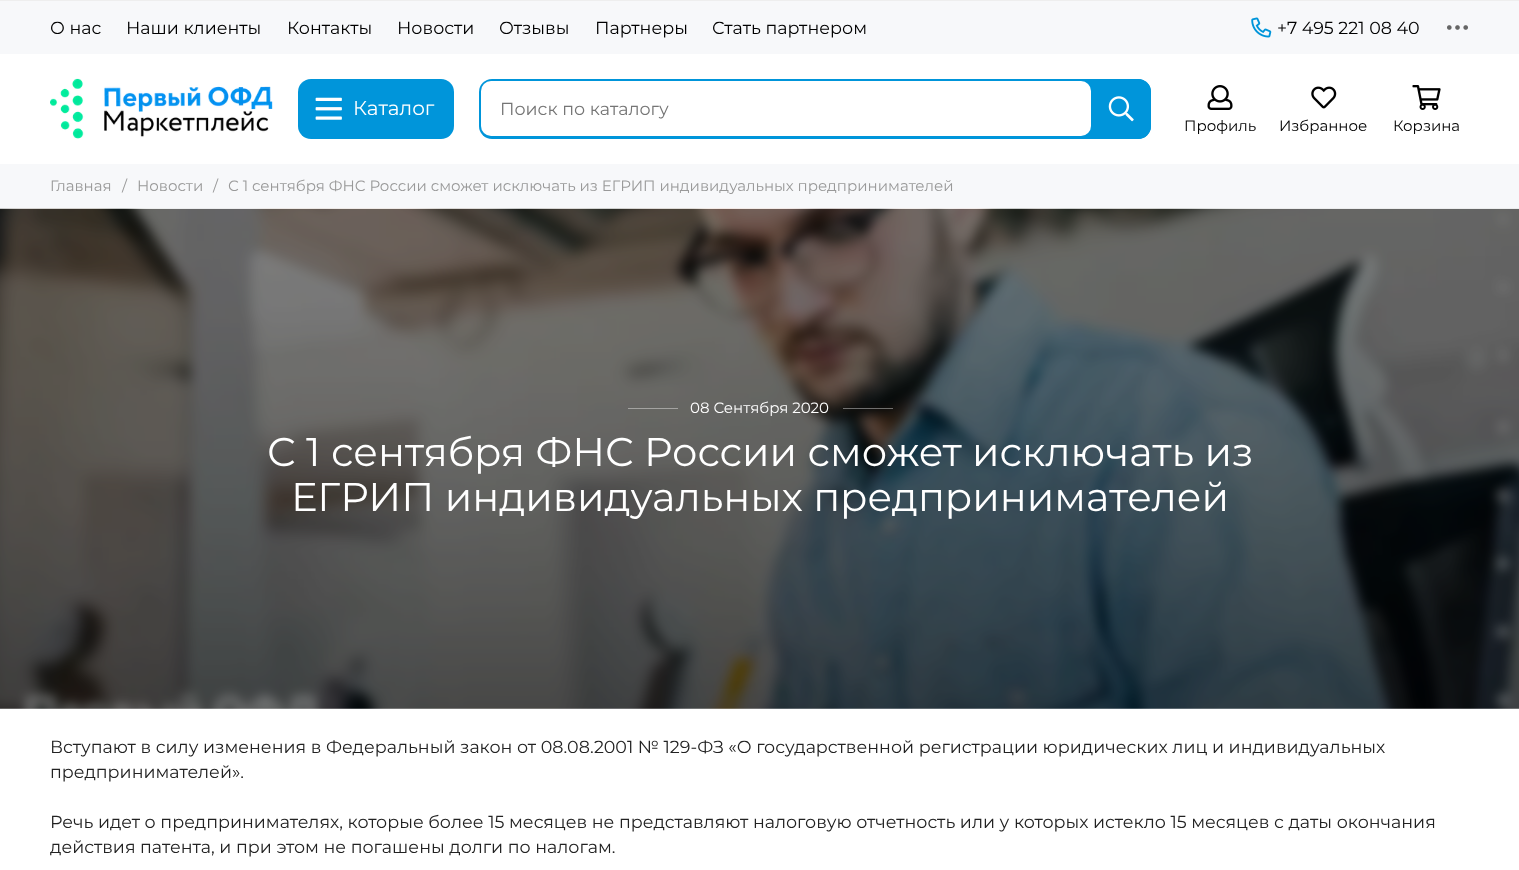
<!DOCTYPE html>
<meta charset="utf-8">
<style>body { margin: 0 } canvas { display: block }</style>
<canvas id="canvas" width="1519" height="870"></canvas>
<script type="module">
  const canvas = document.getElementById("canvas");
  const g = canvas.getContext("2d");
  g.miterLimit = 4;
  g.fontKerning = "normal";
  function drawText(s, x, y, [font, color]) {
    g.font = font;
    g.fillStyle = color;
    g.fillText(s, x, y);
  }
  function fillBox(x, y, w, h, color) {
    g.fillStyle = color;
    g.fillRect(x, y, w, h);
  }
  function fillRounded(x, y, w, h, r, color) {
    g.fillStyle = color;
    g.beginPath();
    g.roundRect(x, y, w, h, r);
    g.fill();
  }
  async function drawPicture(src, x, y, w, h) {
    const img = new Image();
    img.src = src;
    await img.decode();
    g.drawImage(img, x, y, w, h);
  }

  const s1 = ["17.5px Montserrat", "#000000"];
  const s2 = ["20px Montserrat", "#FFFFFF"];
  const s3 = ["17.5px Montserrat", "#757575"];
  const s4 = ["15px Montserrat", "#000000"];
  const s5 = ["15px Montserrat", "#999999"];
  const s6 = ["15px Montserrat", "#FFFFFF"];
  const s7 = ["40px Montserrat", "#FFFFFF"];
  const s8 = ["17.5px Montserrat", "#222222"];

  fillBox(0, 0, 1519, 870, "#FFFFFF");
  fillBox(0, 0, 1519, 1, "#EEEEEE");
  fillBox(0, 1, 1519, 53, "#F7F8FA");
  drawText("О нас", 50, 34, s1);
  drawText("Наши клиенты", 126, 34, s1);
  drawText("Контакты", 287, 34, s1);
  drawText("Новости", 397, 34, s1);
  drawText("Отзывы", 499, 34, s1);
  drawText("Партнеры", 595, 34, s1);
  drawText("Стать партнером", 712, 34, s1);
  await drawPicture("pic1.png", 1251, 17, 21, 21);
  drawText("+7 495 221 08 40", 1277, 34, s1);
  await drawPicture("pic2.png", 1447, 25, 21, 5);
  await drawPicture("pic3.png", 50, 78, 223, 61);
  fillRounded(298, 79, 156, 60, 13, "#0095DA");
  await drawPicture("pic4.png", 315, 97, 27, 23);
  drawText("Каталог", 353, 115, s2);
  fillRounded(479, 79, 672, 60, 13, "#0095DA");
  fillRounded(481, 81, 610, 55, 10, "#FFFFFF");
  drawText("Поиск по каталогу", 500, 115, s3);
  g.fillStyle = "#0095DA";
  g.beginPath();
  g.roundRect(1091, 79, 60, 60, [0, 13, 13, 0]);
  g.fill();
  await drawPicture("pic5.png", 1108, 96, 26, 26);
  await drawPicture("pic6.png", 1207, 85, 26, 25);
  drawText("Профиль", 1184, 131, s4);
  await drawPicture("pic7.png", 1311, 86, 26, 23);
  drawText("Избранное", 1279, 131, s4);
  await drawPicture("pic8.png", 1412, 85, 29, 25);
  drawText("Корзина", 1393, 131, s4);
  fillBox(0, 164, 1519, 45, "#F7F8FA");
  drawText("Главная", 50, 191, s5);
  drawText("/", 122, 191, s5);
  drawText("Новости", 137, 191, s5);
  drawText("/", 213, 191, s5);
  drawText("С 1 сентября ФНС России сможет исключать из ЕГРИП индивидуальных предпринимателей", 228, 191, s5);
  await drawPicture("pic9.png", 0, 208, 1519, 501);
  fillBox(628, 408, 50, 1, "#A4A3A1");
  drawText("08 Сентября 2020", 690, 413, s6);
  fillBox(843, 408, 50, 1, "rgba(255, 255, 255, 0.4)");
  drawText("С 1 сентября ФНС России сможет исключать из", 267, 466, s7);
  drawText("ЕГРИП индивидуальных предпринимателей", 291, 511, s7);
  drawText("Вступают в силу изменения в Федеральный закон от 08.08.2001 № 129-ФЗ «О государственной регистрации юридических лиц и индивидуальных", 50, 753, s8);
  drawText("предпринимателей».", 50, 778, s8);
  drawText("Речь идет о предпринимателях, которые более 15 месяцев не представляют налоговую отчетность или у которых истекло 15 месяцев с даты окончания", 50, 828, s8);
  drawText("действия патента, и при этом не погашены долги по налогам.", 50, 853, s8);
</script>
